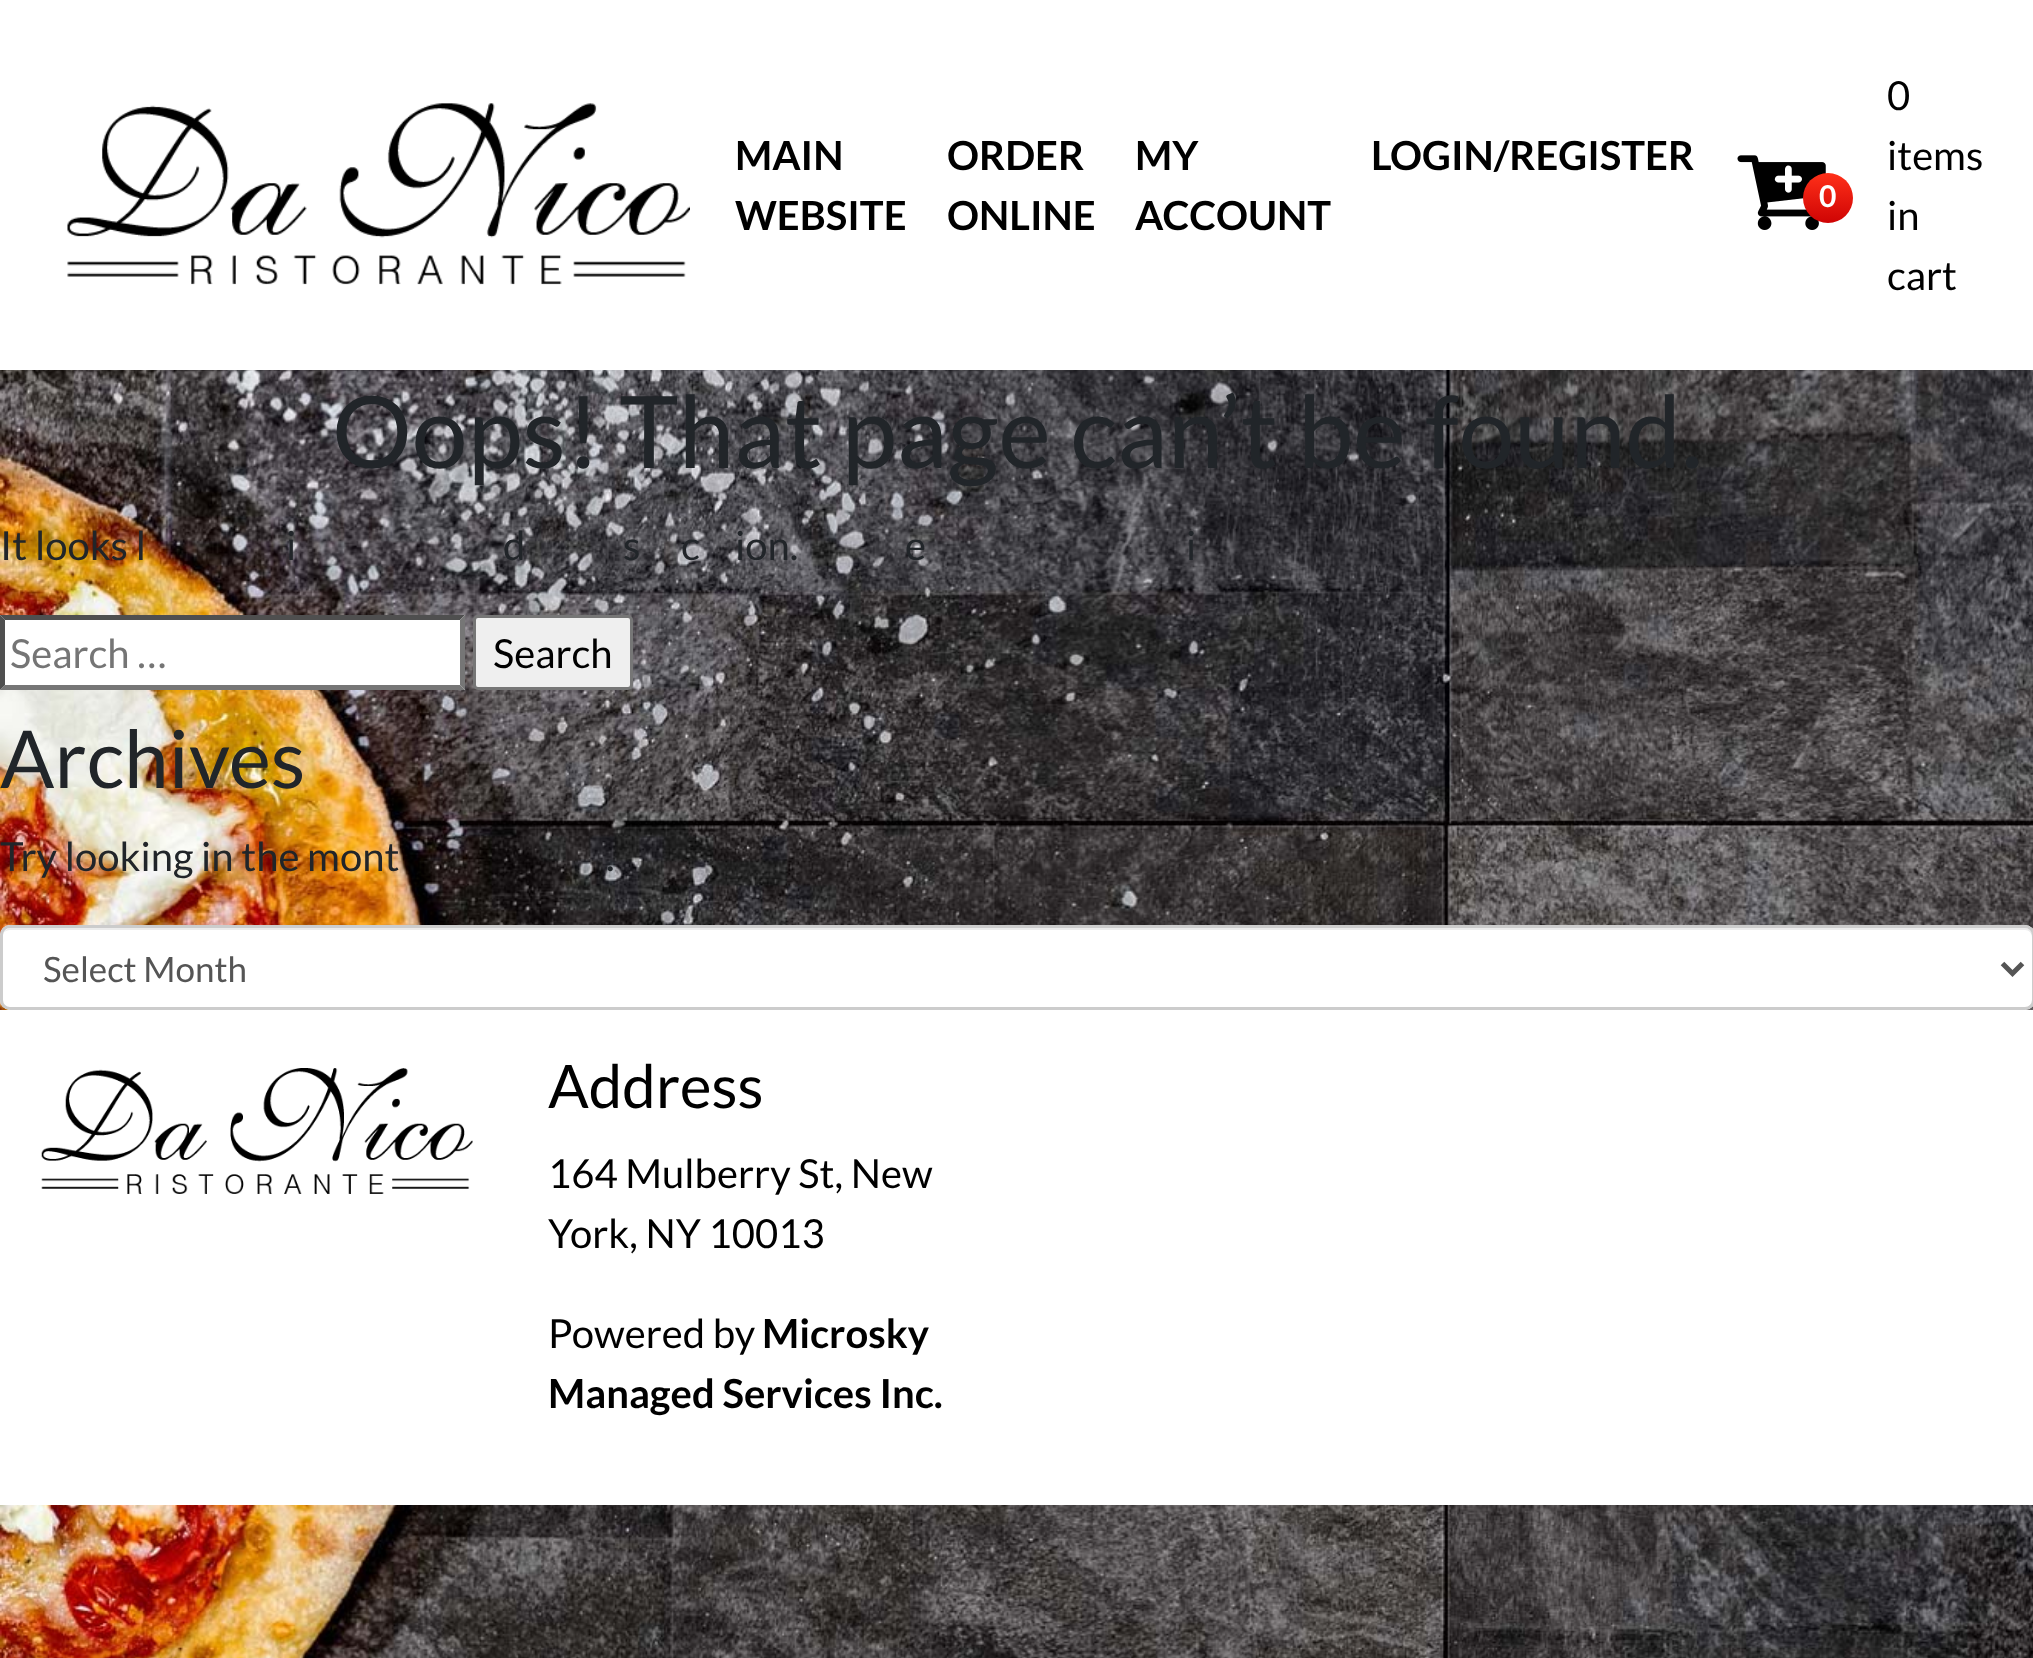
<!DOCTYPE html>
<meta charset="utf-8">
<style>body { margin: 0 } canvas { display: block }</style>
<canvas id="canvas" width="2033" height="1658"></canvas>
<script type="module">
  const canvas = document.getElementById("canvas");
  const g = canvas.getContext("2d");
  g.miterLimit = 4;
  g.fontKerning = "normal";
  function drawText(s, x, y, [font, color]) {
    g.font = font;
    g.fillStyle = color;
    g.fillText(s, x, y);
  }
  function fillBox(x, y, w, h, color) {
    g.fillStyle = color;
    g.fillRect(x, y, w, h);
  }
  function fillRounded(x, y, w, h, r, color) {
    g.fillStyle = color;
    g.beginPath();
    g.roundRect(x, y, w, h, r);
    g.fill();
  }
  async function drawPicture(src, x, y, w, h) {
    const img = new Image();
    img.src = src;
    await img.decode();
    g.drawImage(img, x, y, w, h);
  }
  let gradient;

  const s1 = ["bold 40px Lato", "#000000"];
  const s2 = ["bold 30px Lato", "#FFFFFF"];
  const s3 = ["40px Lato", "#000000"];
  const s4 = ["100px Lato", "#212529"];
  const s5 = ["40px Lato", "#212529"];
  const s6 = ["40px Lato", "#757575"];
  const s7 = ["80px Lato", "#212529"];
  const s8 = ["35px Lato", "#555555"];
  const s9 = ["60px Lato", "#000000"];

  fillBox(0, 0, 2033, 1658, "#FFFFFF");
  await drawPicture("pic1.png", 0, 370, 2033, 1288);
  await drawPicture("pic2.png", 67, 103, 623, 182);
  drawText("MAIN", 735, 170, s1);
  drawText("WEBSITE", 735, 230, s1);
  drawText("ORDER", 947, 170, s1);
  drawText("ONLINE", 947, 230, s1);
  drawText("MY", 1135, 170, s1);
  drawText("ACCOUNT", 1135, 230, s1);
  drawText("LOGIN/REGISTER", 1371, 170, s1);
  await drawPicture("pic3.png", 1737, 155, 89, 75);
  gradient = g.createLinearGradient(1828, 173, 1828, 223);
  gradient.addColorStop(0, "#FF3019");
  gradient.addColorStop(1, "#CF0404");
  g.fillStyle = gradient;
  g.beginPath();
  g.arc(1828, 198, 25, 0, Math.PI * 2);
  g.fill();
  drawText("0", 1819, 207, s2);
  drawText("0", 1887, 110, s3);
  drawText("items", 1887, 170, s3);
  drawText("in", 1887, 230, s3);
  drawText("cart", 1887, 290, s3);
  drawText("Oops! That page can’t be found.", 332, 468, s4);
  drawText("It looks l", 0, 560, s5);
  drawText("i", 286, 560, s5);
  drawText("d", 503, 560, s5);
  drawText("s", 623, 560, s5);
  drawText("c", 681, 560, s5);
  drawText("ion.", 735, 560, s5);
  drawText("e", 905, 560, s5);
  drawText("i", 1186, 560, s5);
  fillBox(0, 615, 465, 75, "#FFFFFF");
  g.fillStyle = "#4F4F4F";
  g.beginPath();
  g.moveTo(0, 615);
  g.lineTo(465, 615);
  g.lineTo(460, 620);
  g.lineTo(5, 620);
  g.closePath();
  g.fill();
  g.fillStyle = "#767676";
  g.beginPath();
  g.moveTo(465, 615);
  g.lineTo(465, 690);
  g.lineTo(460, 685);
  g.lineTo(460, 620);
  g.closePath();
  g.fill();
  g.beginPath();
  g.moveTo(465, 690);
  g.lineTo(0, 690);
  g.lineTo(5, 685);
  g.lineTo(460, 685);
  g.closePath();
  g.fill();
  g.fillStyle = "#4F4F4F";
  g.beginPath();
  g.moveTo(0, 690);
  g.lineTo(0, 615);
  g.lineTo(5, 620);
  g.lineTo(5, 685);
  g.closePath();
  g.fill();
  drawText("Search …", 10, 668, s6);
  g.fillStyle = "#EFEFEF";
  g.beginPath();
  g.roundRect(474.5, 616.5, 157, 72, 3.5);
  g.fill();
  g.strokeStyle = "#767676";
  g.lineWidth = 3;
  g.stroke();
  drawText("Search", 493, 668, s3);
  drawText("Archives", 0, 788, s7);
  drawText("Try looking in the mont", 0, 871, s5);
  drawText(".", 606, 871, s5);
  fillRounded(0, 925, 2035, 85, 10, "#FFFFFF");
  g.fillStyle = "#ECECEC";
  g.beginPath();
  g.moveTo(10, 930);
  g.lineTo(2025, 930);
  g.bezierCurveTo(2029, 930, 2032, 933, 2032, 938);
  g.lineTo(2032, 1004);
  g.bezierCurveTo(2033, 1003, 2033, 1002, 2033, 1000);
  g.lineTo(2033, 936);
  g.bezierCurveTo(2033, 932, 2029, 928, 2025, 928);
  g.lineTo(11, 928);
  g.bezierCurveTo(8, 928, 5, 930, 3, 933);
  g.bezierCurveTo(5, 931, 8, 930, 10, 930);
  g.closePath();
  g.fill();
  g.beginPath();
  g.roundRect(1.5, 926.5, 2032, 82, 8.5);
  g.strokeStyle = "#CCCCCC";
  g.stroke();
  g.beginPath();
  g.moveTo(2002.5, 963.5);
  g.lineTo(2012.5, 973.5);
  g.lineTo(2022.5, 963.5);
  g.strokeStyle = "#555555";
  g.lineWidth = 5;
  g.stroke();
  drawText("Select Month", 43, 982, s8);
  fillBox(0, 1010, 2033, 495, "#FFFFFF");
  await drawPicture("pic4.png", 41, 1068, 432, 126);
  drawText("Address", 548, 1108, s9);
  drawText("164 Mulberry St, New", 548, 1188, s3);
  drawText("York, NY 10013", 548, 1248, s3);
  drawText("Powered by", 548, 1348, s3);
  drawText("Microsky", 762, 1348, s1);
  drawText("Managed Services Inc.", 548, 1408, s1);
</script>
